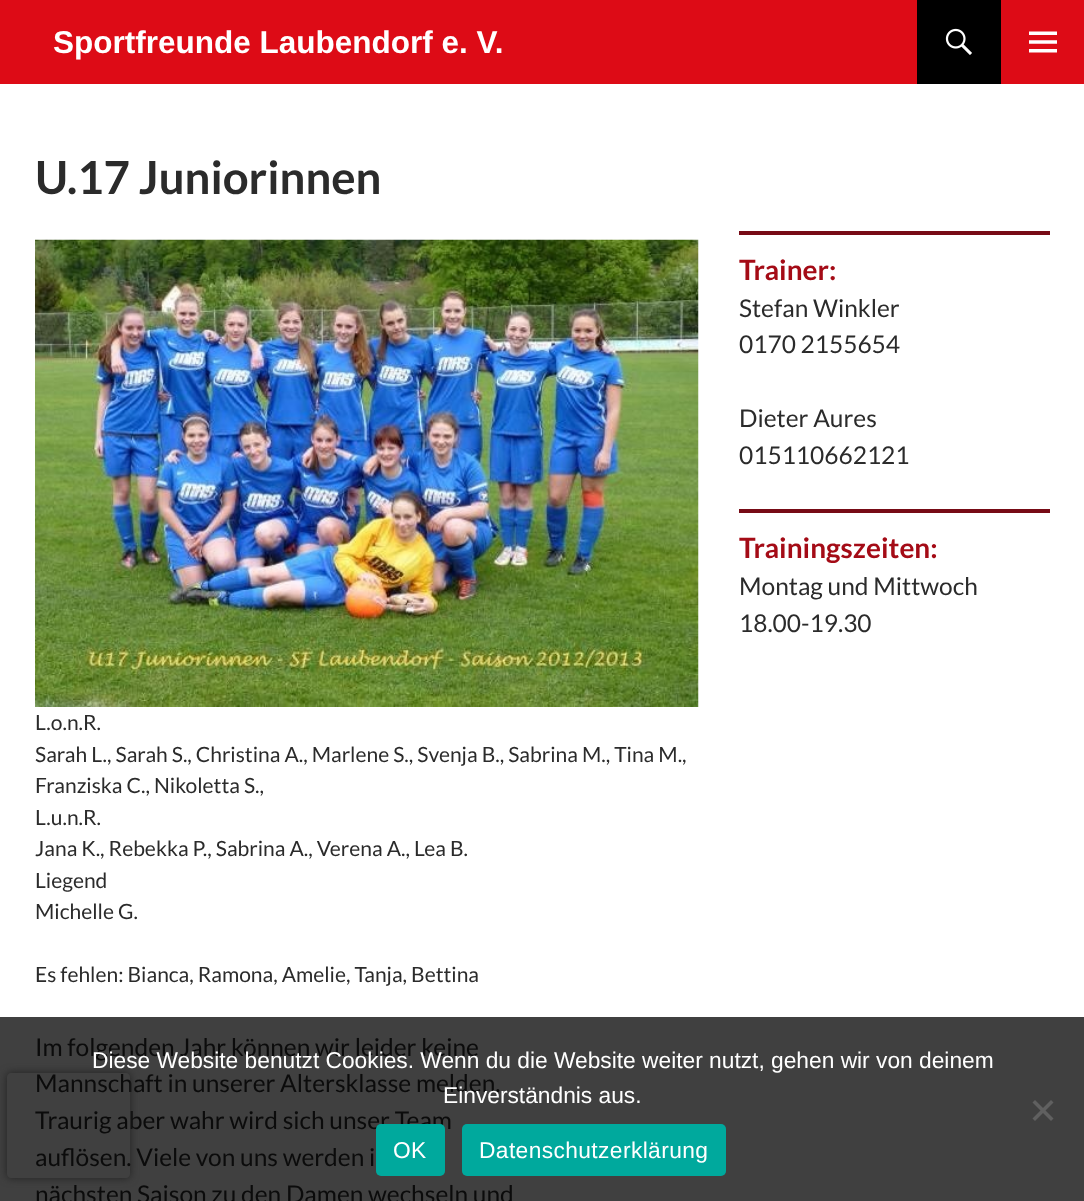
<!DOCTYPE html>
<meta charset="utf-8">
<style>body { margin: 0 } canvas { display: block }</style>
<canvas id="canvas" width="1084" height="1201"></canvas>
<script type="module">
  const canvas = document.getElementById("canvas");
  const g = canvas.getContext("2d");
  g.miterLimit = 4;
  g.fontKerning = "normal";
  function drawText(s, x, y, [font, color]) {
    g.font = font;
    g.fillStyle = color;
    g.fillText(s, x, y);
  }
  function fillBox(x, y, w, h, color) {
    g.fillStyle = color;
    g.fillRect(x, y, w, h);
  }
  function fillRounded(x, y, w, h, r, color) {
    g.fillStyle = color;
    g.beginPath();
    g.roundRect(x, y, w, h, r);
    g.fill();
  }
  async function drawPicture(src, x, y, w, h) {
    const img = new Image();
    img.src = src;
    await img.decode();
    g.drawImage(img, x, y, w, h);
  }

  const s1 = ["bold 31.5px Liberation Sans", "#FFFFFF"];
  const s2 = ["bold 45.5px Lato", "#2B2B2B"];
  const s3 = ["bold 28px Lato", "#A40B16"];
  const s4 = ["24.5px Lato", "#2B2B2B"];
  const s5 = ["21px Lato", "#2B2B2B"];
  const s6 = ["24.5px Lato", "#0B0B0B"];
  const s7 = ["22.75px Liberation Sans", "#FFFFFF"];

  fillBox(0, 0, 1084, 1201, "#FFFFFF");
  fillBox(0, 1017, 1084, 184, "#404040");
  fillBox(0, 0, 1084, 84, "#DD0B16");
  drawText("Sportfreunde Laubendorf e. V.", 53, 53, s1);
  fillBox(917, 0, 84, 84, "#000000");
  await drawPicture("pic1.png", 945, 28, 27, 27);
  await drawPicture("pic2.png", 1029, 31, 28, 22);
  drawText("U.17 Juniorinnen", 35, 194, s2);
  fillBox(739, 231, 311, 4, "#770B16");
  drawText("Trainer:", 739, 280, s3);
  drawText("Stefan Winkler", 739, 317, s4);
  drawText("0170 2155654", 739, 353, s4);
  drawText("Dieter Aures", 739, 427, s4);
  drawText("015110662121", 739, 464, s4);
  fillBox(739, 509, 311, 4, "#770B16");
  drawText("Trainingszeiten:", 739, 558, s3);
  drawText("Montag und Mittwoch", 739, 595, s4);
  drawText("18.00-19.30", 739, 632, s4);
  await drawPicture("pic3.png", 35, 239, 664, 468);
  drawText("L.o.n.R.", 35, 730, s5);
  drawText("Sarah L., Sarah S., Christina A., Marlene S., Svenja B., Sabrina M., Tina M.,", 35, 762, s5);
  drawText("Franziska C., Nikoletta S.,", 35, 793, s5);
  drawText("L.u.n.R.", 35, 825, s5);
  drawText("Jana K., Rebekka P., Sabrina A., Verena A., Lea B.", 35, 856, s5);
  drawText("Liegend", 35, 888, s5);
  drawText("Michelle G.", 35, 919, s5);
  drawText("Es fehlen: Bianca, Ramona, Amelie, Tanja, Bettina", 35, 982, s5);
  drawText("Im folgenden Jahr können wir leider keine", 35, 1056, s6);
  drawText("Mannschaft in unserer Altersklasse melden.", 35, 1092, s6);
  drawText("Traurig aber wahr wird sich unser Team", 35, 1129, s6);
  drawText("auflösen. Viele von uns werden i", 35, 1166, s6);
  drawText("nächsten Saison zu den Damen wechseln und", 35, 1203, s6);
  g.save();
  g.beginPath();
  g.moveTo(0, 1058);
  g.lineTo(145, 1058);
  g.lineTo(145, 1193);
  g.lineTo(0, 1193);
  g.closePath();
  g.moveTo(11, 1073);
  g.lineTo(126, 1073);
  g.bezierCurveTo(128, 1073, 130, 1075, 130, 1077);
  g.lineTo(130, 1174);
  g.bezierCurveTo(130, 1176, 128, 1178, 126, 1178);
  g.lineTo(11, 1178);
  g.bezierCurveTo(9, 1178, 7, 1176, 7, 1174);
  g.lineTo(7, 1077);
  g.bezierCurveTo(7, 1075, 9, 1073, 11, 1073);
  g.closePath();
  g.clip("evenodd");
  g.fillStyle = "#202020";
  g.filter = "blur(4.5px)";
  g.beginPath();
  g.roundRect(7, 1073, 123, 105, 4);
  g.fill();
  g.filter = "none";
  g.restore();
  drawText("Diese Website benutzt Cookies. Wenn du die Website weiter nutzt, gehen wir von deinem", 92, 1068, s7);
  drawText("Einverständnis aus.", 443, 1103, s7);
  g.fillStyle = "#606060";
  g.beginPath();
  g.moveTo(1051, 1100);
  g.lineTo(1053.5, 1102.5);
  g.lineTo(1035, 1121);
  g.lineTo(1032.5, 1118.5);
  g.closePath();
  g.fill();
  g.beginPath();
  g.moveTo(1032.5, 1102.5);
  g.lineTo(1035, 1100);
  g.lineTo(1053.5, 1118.5);
  g.lineTo(1051, 1121);
  g.closePath();
  g.fill();
  fillRounded(376, 1124, 69, 52, 5, "#00A99D");
  g.letterSpacing = "0.4px";
  drawText("OK", 393, 1158, s7);
  fillRounded(462, 1124, 264, 52, 5, "#00A99D");
  drawText("Datenschutzerklärung", 479, 1158, s7);
</script>
